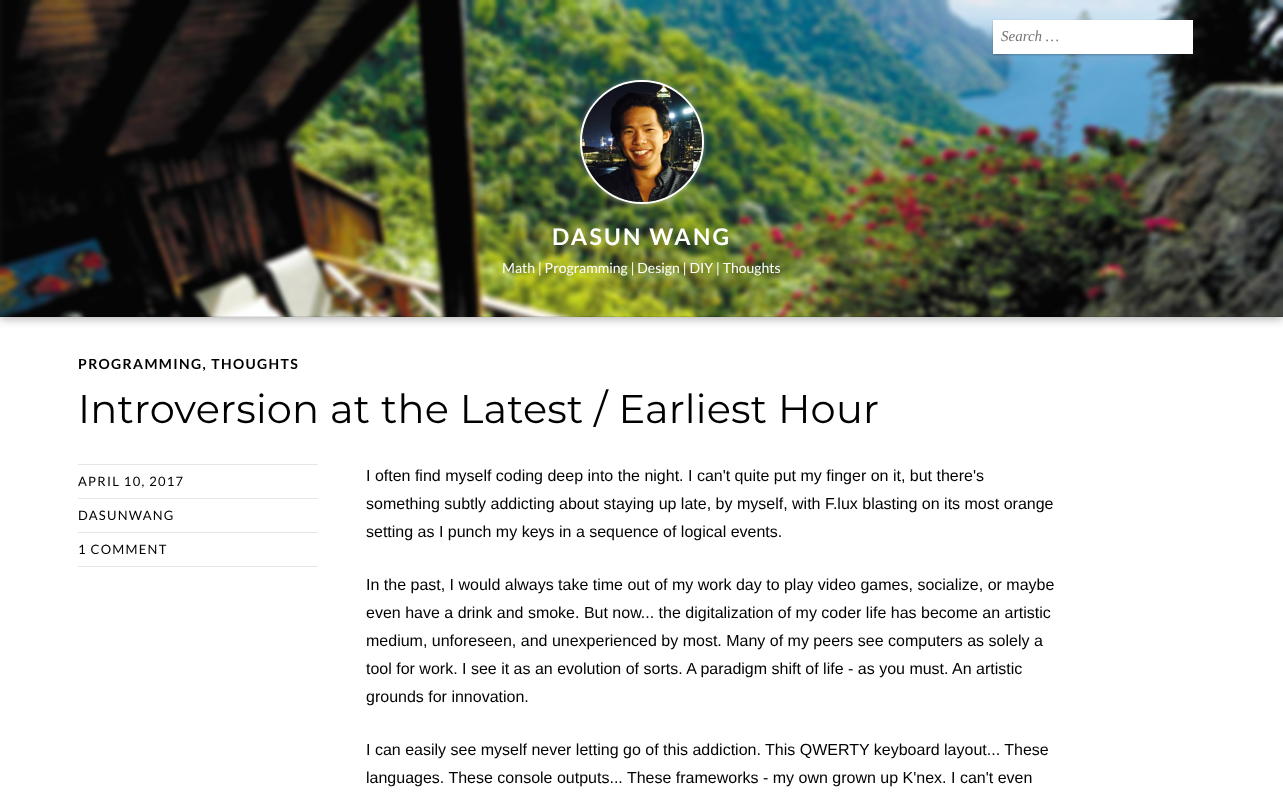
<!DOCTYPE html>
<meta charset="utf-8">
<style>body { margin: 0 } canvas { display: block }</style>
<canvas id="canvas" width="1283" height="794"></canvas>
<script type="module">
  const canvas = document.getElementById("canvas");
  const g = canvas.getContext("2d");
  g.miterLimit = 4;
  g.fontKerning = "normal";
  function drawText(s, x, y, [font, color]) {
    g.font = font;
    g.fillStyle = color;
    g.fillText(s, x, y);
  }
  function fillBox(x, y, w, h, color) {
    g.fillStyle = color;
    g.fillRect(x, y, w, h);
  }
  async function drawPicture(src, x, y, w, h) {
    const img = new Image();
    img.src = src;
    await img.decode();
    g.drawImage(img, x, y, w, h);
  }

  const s1 = ["italic 15px Liberation Serif", "#757575"];
  const s2 = ["bold 23px Lato", "#FFFFFF"];
  const s3 = ["14px Lato", "#FFFFFF"];
  const s4 = ["bold 14px Lato", "#000000"];
  const s5 = ["100 40px Montserrat", "#000000"];
  const s6 = ["13px Lato", "#000000"];
  const s7 = ["16px Liberation Sans", "#000000"];

  fillBox(0, 0, 1283, 794, "#FFFFFF");
  g.fillStyle = "rgba(0, 0, 0, 0.3)";
  g.filter = "blur(5px)";
  g.beginPath();
  g.rect(0, 2, 1283, 317);
  g.fill();
  g.filter = "none";
  await drawPicture("pic1.png", 0, 0, 1283, 317);
  fillBox(0, 316, 1283, 1, "rgba(0, 0, 0, 0.1)");
  g.fillStyle = "rgba(0, 0, 0, 0.25)";
  g.filter = "blur(1px)";
  g.beginPath();
  g.rect(993, 21, 200, 34);
  g.fill();
  g.filter = "none";
  fillBox(993, 20, 200, 34, "#FFFFFF");
  drawText("Search …", 1001, 41, s1);
  g.fillStyle = "rgba(255, 255, 255, 0.4)";
  g.filter = "blur(2.5px)";
  g.beginPath();
  g.roundRect(580, 80, 124, 124, 62);
  g.fill();
  g.filter = "none";
  g.beginPath();
  g.arc(642, 142, 61, 0, Math.PI * 2);
  g.strokeStyle = "#FFFFFF";
  g.lineWidth = 2;
  g.stroke();
  await drawPicture("pic2.png", 582, 82, 120, 120);
  g.letterSpacing = "2.25px";
  drawText("DASUN WANG", 552, 245, s2);
  g.letterSpacing = "0px";
  drawText("Math | Programming | Design | DIY | Thoughts", 502, 273, s3);
  g.letterSpacing = "1.4px";
  drawText("PROGRAMMING, THOUGHTS", 78, 369, s4);
  g.letterSpacing = "0.2px";
  drawText("Introversion at the Latest / Earliest Hour", 78, 423, s5);
  fillBox(78, 464, 240, 1, "#E6E6E6");
  fillBox(78, 498, 240, 1, "#E6E6E6");
  g.letterSpacing = "1.25px";
  drawText("APRIL 10, 2017", 78, 486, s6);
  fillBox(78, 532, 240, 1, "#E6E6E6");
  drawText("DASUNWANG", 78, 520, s6);
  fillBox(78, 566, 240, 1, "#E6E6E6");
  drawText("1 COMMENT", 78, 554, s6);
  g.letterSpacing = "0px";
  drawText("I often find myself coding deep into the night. I can't quite put my finger on it, but there's", 366, 481, s7);
  drawText("something subtly addicting about staying up late, by myself, with F.lux blasting on its most orange", 366, 509, s7);
  drawText("setting as I punch my keys in a sequence of logical events.", 366, 537, s7);
  drawText("In the past, I would always take time out of my work day to play video games, socialize, or maybe", 366, 590, s7);
  drawText("even have a drink and smoke. But now... the digitalization of my coder life has become an artistic", 366, 618, s7);
  drawText("medium, unforeseen, and unexperienced by most. Many of my peers see computers as solely a", 366, 646, s7);
  drawText("tool for work. I see it as an evolution of sorts. A paradigm shift of life - as you must. An artistic", 366, 674, s7);
  drawText("grounds for innovation.", 366, 702, s7);
  drawText("I can easily see myself never letting go of this addiction. This QWERTY keyboard layout... These", 366, 755, s7);
  drawText("languages. These console outputs... These frameworks - my own grown up K'nex. I can't even", 366, 783, s7);
</script>
